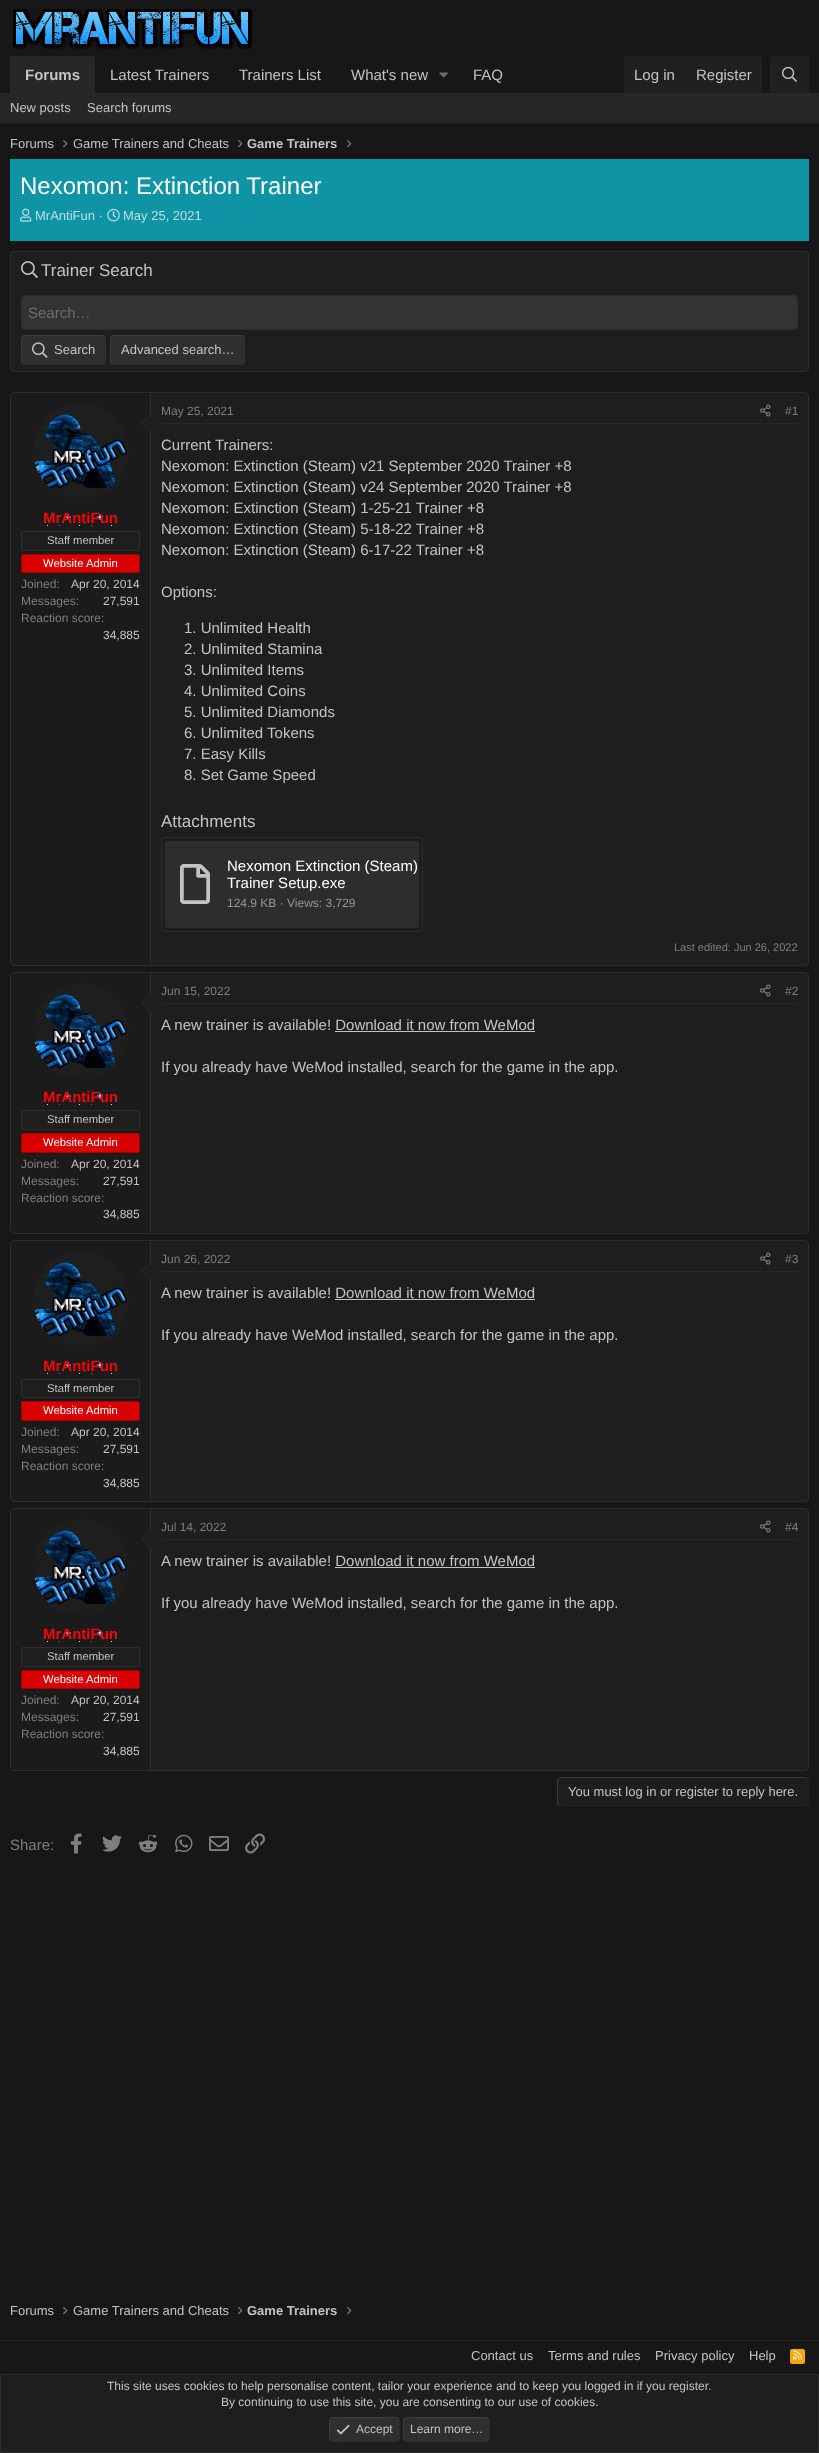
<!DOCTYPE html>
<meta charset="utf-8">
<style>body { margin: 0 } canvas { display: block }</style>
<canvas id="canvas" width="819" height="2453"></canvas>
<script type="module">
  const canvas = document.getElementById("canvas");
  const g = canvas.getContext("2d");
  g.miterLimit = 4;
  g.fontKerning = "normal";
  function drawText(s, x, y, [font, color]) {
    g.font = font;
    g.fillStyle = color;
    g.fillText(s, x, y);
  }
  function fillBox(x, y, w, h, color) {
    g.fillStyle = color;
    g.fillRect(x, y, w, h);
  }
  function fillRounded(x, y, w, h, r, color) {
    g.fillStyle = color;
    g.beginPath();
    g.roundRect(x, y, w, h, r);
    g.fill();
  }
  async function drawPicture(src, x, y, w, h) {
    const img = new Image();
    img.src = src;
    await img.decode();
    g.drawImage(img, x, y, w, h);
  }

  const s1 = ["bold 15px Liberation Sans", "#C4C2C2"];
  const s2 = ["15px Liberation Sans", "#C4C2C2"];
  const s3 = ["13px Liberation Sans", "#C4C2C2"];
  const s4 = ["bold 13px Liberation Sans", "#C4C2C2"];
  const s5 = ["24px Liberation Sans", "#FFFFFF"];
  const s6 = ["13px Liberation Sans", "#B7DFE4"];
  const s7 = ["17px Liberation Sans", "#C4C2C2"];
  const s8 = ["15px Liberation Sans", "#6E6C6C"];
  const s9 = ["bold 15px Liberation Sans", "#FF0000"];
  const s10 = ["11.25px Liberation Sans", "#C4C2C2"];
  const s11 = ["11.25px Liberation Sans", "#FFFFFF"];
  const s12 = ["12px Liberation Sans", "#807D7D"];
  const s13 = ["12px Liberation Sans", "#C4C2C2"];
  const s14 = ["15px Liberation Sans", "#FFFFFF"];
  const s15 = ["12px Liberation Sans", "#979696"];
  const s16 = ["11px Liberation Sans", "#807D7D"];
  const s17 = ["15px Liberation Sans", "#807D7D"];

  fillBox(0, 0, 819, 2453, "#171717");
  await drawPicture("pic1.png", 13, 9, 240, 40);
  g.fillStyle = "#282727";
  g.beginPath();
  g.roundRect(10, 56, 85, 37, [2, 2, 0, 0]);
  g.fill();
  drawText("Forums", 25, 80, s1);
  drawText("Latest Trainers", 110, 80, s2);
  drawText("Trainers List", 239, 80, s2);
  drawText("What's new", 351, 80, s2);
  await drawPicture("pic2.png", 439, 72, 9, 6);
  drawText("FAQ", 473, 80, s2);
  g.fillStyle = "#212020";
  g.beginPath();
  g.roundRect(624, 56, 138, 37, [4, 4, 0, 0]);
  g.fill();
  drawText("Log in", 634, 80, s2);
  drawText("Register", 696, 80, s2);
  g.fillStyle = "#212020";
  g.beginPath();
  g.roundRect(770, 56, 39, 37, [4, 4, 0, 0]);
  g.fill();
  await drawPicture("pic3.png", 782, 66, 15, 16);
  fillBox(0, 93, 819, 30, "#282727");
  fillBox(0, 123, 819, 1, "#212020");
  drawText("New posts", 10, 112, s3);
  drawText("Search forums", 87, 112, s3);
  drawText("Forums", 10, 148, s3);
  await drawPicture("pic4.png", 63, 140, 5, 8);
  drawText("Game Trainers and Cheats", 73, 148, s3);
  await drawPicture("pic4.png", 238, 140, 5, 8);
  drawText("Game Trainers", 247, 148, s4);
  await drawPicture("pic4.png", 347, 140, 5, 8);
  fillBox(10, 159, 799, 82, "#0F94A5");
  drawText("Nexomon: Extinction Trainer", 20, 194, s5);
  await drawPicture("pic5.png", 20, 208, 12, 14);
  drawText("MrAntiFun ·", 35, 220, s6);
  await drawPicture("pic6.png", 107, 208, 13, 14);
  drawText("May 25, 2021", 123, 220, s6);
  g.fillStyle = "#1F1E1E";
  g.beginPath();
  g.roundRect(10.5, 251.5, 798, 120, 3.5);
  g.fill();
  g.strokeStyle = "#2E2D2D";
  g.stroke();
  await drawPicture("pic7.png", 21, 261, 17, 18);
  drawText("Trainer Search", 41, 276, s7);
  g.fillStyle = "#343333";
  g.beginPath();
  g.roundRect(21.5, 295.5, 776, 34, 3.5);
  g.fill();
  g.stroke();
  drawText("Search…", 28, 318, s8);
  fillRounded(21, 335, 85, 30, 4, "#2F2F2F");
  g.beginPath();
  g.moveTo(22.5, 363.5);
  g.bezierCurveTo(20.5, 361.5, 21.5, 353, 21.5, 350);
  g.bezierCurveTo(21.5, 333, 19.5, 335.5, 38, 335.5);
  g.lineTo(102, 335.5);
  g.lineTo(104.5, 336.5);
  g.strokeStyle = "rgba(69, 69, 69, 0.65)";
  g.stroke();
  await drawPicture("pic8.png", 32, 342, 16, 16);
  drawText("Search", 54, 354, s3);
  fillRounded(110, 335, 135, 30, 4, "#2F2F2F");
  g.beginPath();
  g.moveTo(111.5, 363.5);
  g.bezierCurveTo(109.5, 361.5, 110.5, 353, 110.5, 350);
  g.lineTo(110.5, 342.5);
  g.bezierCurveTo(110.5, 340, 110, 335.5, 114, 335.5);
  g.lineTo(241, 335.5);
  g.lineTo(243.5, 336.5);
  g.stroke();
  drawText("Advanced search…", 121, 354, s3);
  g.fillStyle = "#1F1E1E";
  g.beginPath();
  g.roundRect(10.5, 392.5, 798, 573, 3.5);
  g.fill();
  g.strokeStyle = "#2E2D2D";
  g.stroke();
  g.fillStyle = "#1B1B1B";
  g.beginPath();
  g.roundRect(11, 393, 140, 572, [3, 0, 0, 3]);
  g.fill();
  fillBox(150, 393, 1, 572, "#2E2D2D");
  g.fillStyle = "#1F1E1E";
  g.beginPath();
  g.arc(81, 451, 48, 0, Math.PI * 2);
  g.fill();
  await drawPicture("pic9.png", 34, 414, 93, 75);
  g.fillStyle = "#2E2D2D";
  g.beginPath();
  g.moveTo(151, 413);
  g.lineTo(151, 433);
  g.lineTo(141, 423);
  g.closePath();
  g.fill();
  g.fillStyle = "#1F1E1E";
  g.beginPath();
  g.moveTo(151, 414);
  g.lineTo(151, 432);
  g.lineTo(142, 423);
  g.closePath();
  g.fill();
  await drawPicture("pic10.png", 47, 514, 65, 12);
  drawText("MrAntiFun", 43, 523, s9);
  g.fillStyle = "#1F1E1E";
  g.beginPath();
  g.roundRect(21.5, 531.5, 118, 19, 1.5);
  g.fill();
  g.stroke();
  drawText("Staff member", 47, 544, s10);
  g.fillStyle = "#D80000";
  g.beginPath();
  g.roundRect(21.5, 554.5, 118, 18, 1.5);
  g.fill();
  g.strokeStyle = "#A50000";
  g.stroke();
  drawText("Website Admin", 43, 567, s11);
  drawText("Joined:", 21, 588, s12);
  drawText("Apr 20, 2014", 71, 588, s13);
  drawText("Messages:", 21, 605, s12);
  drawText("27,591", 103, 605, s13);
  drawText("Reaction score:", 21, 622, s12);
  drawText("34,885", 103, 639, s13);
  fillBox(161, 423, 637, 1, "#282828");
  drawText("May 25, 2021", 161, 415, s12);
  await drawPicture("pic11.png", 760, 404, 11, 13);
  drawText("#1", 785, 415, s12);
  drawText("Current Trainers:", 161, 450, s2);
  drawText("Nexomon: Extinction (Steam) v21 September 2020 Trainer +8", 161, 471, s2);
  drawText("Nexomon: Extinction (Steam) v24 September 2020 Trainer +8", 161, 492, s2);
  drawText("Nexomon: Extinction (Steam) 1-25-21 Trainer +8", 161, 513, s2);
  drawText("Nexomon: Extinction (Steam) 5-18-22 Trainer +8", 161, 534, s2);
  drawText("Nexomon: Extinction (Steam) 6-17-22 Trainer +8", 161, 555, s2);
  drawText("Options:", 161, 597, s2);
  drawText("1. Unlimited Health", 184, 633, s2);
  drawText("2. Unlimited Stamina", 184, 654, s2);
  drawText("3. Unlimited Items", 184, 675, s2);
  drawText("4. Unlimited Coins", 184, 696, s2);
  drawText("5. Unlimited Diamonds", 184, 717, s2);
  drawText("6. Unlimited Tokens", 184, 738, s2);
  drawText("7. Easy Kills", 184, 759, s2);
  drawText("8. Set Game Speed", 184, 780, s2);
  drawText("Attachments", 161, 827, s7);
  g.beginPath();
  g.roundRect(161.5, 837.5, 261, 94, 2.5);
  g.strokeStyle = "#2E2D2D";
  g.stroke();
  fillRounded(165, 841, 254, 87, 3, "#2E2D2D");
  await drawPicture("pic12.png", 180, 864, 30, 40);
  drawText("Nexomon Extinction (Steam)", 227, 871, s14);
  drawText("Trainer Setup.exe", 227, 888, s14);
  drawText("124.9 KB · Views: 3,729", 227, 907, s15);
  drawText("Last edited: Jun 26, 2022", 674, 951, s16);
  g.fillStyle = "#1F1E1E";
  g.beginPath();
  g.roundRect(10.5, 972.5, 798, 261, 3.5);
  g.fill();
  g.stroke();
  fillBox(161, 1003, 637, 1, "#282828");
  drawText("Jun 15, 2022", 161, 995, s12);
  await drawPicture("pic11.png", 760, 984, 11, 13);
  drawText("#2", 785, 995, s12);
  drawText("A new trainer is available! Download it now from WeMod", 161, 1030, s2);
  fillBox(335, 1031, 200, 1, "#C4C2C2");
  drawText("If you already have WeMod installed, search for the game in the app.", 161, 1072, s2);
  g.fillStyle = "#1B1B1B";
  g.beginPath();
  g.roundRect(11, 973, 140, 260, [3, 0, 0, 3]);
  g.fill();
  fillBox(150, 973, 1, 260, "#2E2D2D");
  g.fillStyle = "#1F1E1E";
  g.beginPath();
  g.arc(81, 1031, 48, 0, Math.PI * 2);
  g.fill();
  await drawPicture("pic9.png", 34, 994, 93, 75);
  g.fillStyle = "#2E2D2D";
  g.beginPath();
  g.moveTo(151, 993);
  g.lineTo(151, 1013);
  g.lineTo(141, 1003);
  g.closePath();
  g.fill();
  g.fillStyle = "#1F1E1E";
  g.beginPath();
  g.moveTo(151, 994);
  g.lineTo(151, 1012);
  g.lineTo(142, 1003);
  g.closePath();
  g.fill();
  await drawPicture("pic10.png", 47, 1093, 65, 12);
  drawText("MrAntiFun", 43, 1102, s9);
  g.fillStyle = "#1F1E1E";
  g.beginPath();
  g.roundRect(21.5, 1110.5, 118, 19, 1.5);
  g.fill();
  g.stroke();
  drawText("Staff member", 47, 1123, s10);
  g.fillStyle = "#D80000";
  g.beginPath();
  g.roundRect(21.5, 1133.5, 118, 19, 1.5);
  g.fill();
  g.strokeStyle = "#A50000";
  g.stroke();
  drawText("Website Admin", 43, 1146, s11);
  drawText("Joined:", 21, 1168, s12);
  drawText("Apr 20, 2014", 71, 1168, s13);
  drawText("Messages:", 21, 1185, s12);
  drawText("27,591", 103, 1185, s13);
  drawText("Reaction score:", 21, 1202, s12);
  drawText("34,885", 103, 1218, s13);
  g.fillStyle = "#1F1E1E";
  g.beginPath();
  g.roundRect(10.5, 1240.5, 798, 261, 3.5);
  g.fill();
  g.strokeStyle = "#2E2D2D";
  g.stroke();
  fillBox(161, 1271, 637, 1, "#282828");
  drawText("Jun 26, 2022", 161, 1263, s12);
  await drawPicture("pic11.png", 760, 1252, 11, 13);
  drawText("#3", 785, 1263, s12);
  drawText("A new trainer is available! Download it now from WeMod", 161, 1298, s2);
  fillBox(335, 1299, 200, 1, "#C4C2C2");
  drawText("If you already have WeMod installed, search for the game in the app.", 161, 1340, s2);
  g.fillStyle = "#1B1B1B";
  g.beginPath();
  g.roundRect(11, 1241, 140, 260, [3, 0, 0, 3]);
  g.fill();
  fillBox(150, 1241, 1, 260, "#2E2D2D");
  g.fillStyle = "#1F1E1E";
  g.beginPath();
  g.arc(81, 1299, 48, 0, Math.PI * 2);
  g.fill();
  await drawPicture("pic9.png", 34, 1262, 93, 75);
  g.fillStyle = "#2E2D2D";
  g.beginPath();
  g.moveTo(151, 1261);
  g.lineTo(151, 1281);
  g.lineTo(141, 1271);
  g.closePath();
  g.fill();
  g.fillStyle = "#1F1E1E";
  g.beginPath();
  g.moveTo(151, 1262);
  g.lineTo(151, 1280);
  g.lineTo(142, 1271);
  g.closePath();
  g.fill();
  await drawPicture("pic10.png", 47, 1362, 65, 12);
  drawText("MrAntiFun", 43, 1371, s9);
  g.fillStyle = "#1F1E1E";
  g.beginPath();
  g.roundRect(21.5, 1379.5, 118, 18, 1.5);
  g.fill();
  g.stroke();
  drawText("Staff member", 47, 1392, s10);
  g.fillStyle = "#D80000";
  g.beginPath();
  g.roundRect(21.5, 1401.5, 118, 19, 1.5);
  g.fill();
  g.strokeStyle = "#A50000";
  g.stroke();
  drawText("Website Admin", 43, 1414, s11);
  drawText("Joined:", 21, 1436, s12);
  drawText("Apr 20, 2014", 71, 1436, s13);
  drawText("Messages:", 21, 1453, s12);
  drawText("27,591", 103, 1453, s13);
  drawText("Reaction score:", 21, 1470, s12);
  drawText("34,885", 103, 1487, s13);
  g.fillStyle = "#1F1E1E";
  g.beginPath();
  g.roundRect(10.5, 1508.5, 798, 262, 3.5);
  g.fill();
  g.strokeStyle = "#2E2D2D";
  g.stroke();
  fillBox(161, 1539, 637, 1, "#282828");
  drawText("Jul 14, 2022", 161, 1531, s12);
  await drawPicture("pic11.png", 760, 1520, 11, 13);
  drawText("#4", 785, 1531, s12);
  drawText("A new trainer is available! Download it now from WeMod", 161, 1566, s2);
  fillBox(335, 1567, 200, 1, "#C4C2C2");
  drawText("If you already have WeMod installed, search for the game in the app.", 161, 1608, s2);
  g.fillStyle = "#1B1B1B";
  g.beginPath();
  g.roundRect(11, 1509, 140, 261, [3, 0, 0, 3]);
  g.fill();
  fillBox(150, 1509, 1, 261, "#2E2D2D");
  g.fillStyle = "#1F1E1E";
  g.beginPath();
  g.arc(81, 1567, 48, 0, Math.PI * 2);
  g.fill();
  await drawPicture("pic9.png", 34, 1530, 93, 75);
  g.fillStyle = "#2E2D2D";
  g.beginPath();
  g.moveTo(151, 1529);
  g.lineTo(151, 1549);
  g.lineTo(141, 1539);
  g.closePath();
  g.fill();
  g.fillStyle = "#1F1E1E";
  g.beginPath();
  g.moveTo(151, 1530);
  g.lineTo(151, 1548);
  g.lineTo(142, 1539);
  g.closePath();
  g.fill();
  await drawPicture("pic10.png", 47, 1630, 65, 12);
  drawText("MrAntiFun", 43, 1639, s9);
  g.fillStyle = "#1F1E1E";
  g.beginPath();
  g.roundRect(21.5, 1647.5, 118, 19, 1.5);
  g.fill();
  g.stroke();
  drawText("Staff member", 47, 1660, s10);
  g.fillStyle = "#D80000";
  g.beginPath();
  g.roundRect(21.5, 1670.5, 118, 18, 1.5);
  g.fill();
  g.strokeStyle = "#A50000";
  g.stroke();
  drawText("Website Admin", 43, 1683, s11);
  drawText("Joined:", 21, 1704, s12);
  drawText("Apr 20, 2014", 71, 1704, s13);
  drawText("Messages:", 21, 1721, s12);
  drawText("27,591", 103, 1721, s13);
  drawText("Reaction score:", 21, 1738, s12);
  drawText("34,885", 103, 1755, s13);
  fillRounded(557, 1777, 252, 30, 4, "#1F1E1E");
  g.beginPath();
  g.moveTo(807.5, 1778.5);
  g.bezierCurveTo(808, 1779, 808.5, 1780, 808.5, 1781);
  g.lineTo(808.5, 1803);
  g.bezierCurveTo(808.5, 1804, 808, 1805, 807.5, 1805.5);
  g.bezierCurveTo(807, 1806, 806, 1806.5, 805, 1806.5);
  g.lineTo(561, 1806.5);
  g.bezierCurveTo(560, 1806.5, 559, 1806, 558.5, 1805.5);
  g.strokeStyle = "#212020";
  g.stroke();
  g.beginPath();
  g.moveTo(558.5, 1805.5);
  g.bezierCurveTo(558, 1805, 557.5, 1804, 557.5, 1803);
  g.lineTo(557.5, 1781);
  g.bezierCurveTo(557.5, 1780, 558, 1779, 558.5, 1778.5);
  g.bezierCurveTo(559, 1778, 560, 1777.5, 561, 1777.5);
  g.lineTo(805, 1777.5);
  g.bezierCurveTo(806, 1777.5, 807, 1778, 807.5, 1778.5);
  g.strokeStyle = "#3B3A3A";
  g.stroke();
  drawText("You must log in or register to reply here.", 568, 1796, s3);
  drawText("Share:", 10, 1850, s17);
  await drawPicture("pic13.png", 70, 1833, 12, 21);
  await drawPicture("pic14.png", 102, 1835, 20, 17);
  await drawPicture("pic15.png", 138, 1834, 20, 19);
  await drawPicture("pic16.png", 175, 1834, 18, 19);
  await drawPicture("pic17.png", 209, 1836, 20, 15);
  await drawPicture("pic18.png", 245, 1833, 20, 21);
  drawText("Forums", 10, 2315, s3);
  await drawPicture("pic4.png", 63, 2307, 5, 8);
  drawText("Game Trainers and Cheats", 73, 2315, s3);
  await drawPicture("pic4.png", 238, 2307, 5, 8);
  drawText("Game Trainers", 247, 2315, s4);
  await drawPicture("pic4.png", 347, 2307, 5, 8);
  fillBox(0, 2340, 819, 1, "#282727");
  drawText("Contact us", 471, 2360, s3);
  drawText("Terms and rules", 548, 2360, s3);
  drawText("Privacy policy", 655, 2360, s3);
  drawText("Help", 749, 2360, s3);
  fillRounded(790, 2349, 15, 15, 2, "#FFA500");
  await drawPicture("pic19.png", 793, 2350, 10, 10);
  g.fillStyle = "#1F1E1E";
  g.beginPath();
  g.rect(0.5, 2374.5, 818, 78);
  g.fill();
  g.strokeStyle = "#2E2D2D";
  g.stroke();
  drawText("This site uses cookies to help personalise content, tailor your experience and to keep you logged in if you register.", 107, 2390, s13);
  drawText("By continuing to use this site, you are consenting to our use of cookies.", 221, 2406, s13);
  fillRounded(329, 2417, 71, 25, 4, "#2F2F2F");
  g.beginPath();
  g.moveTo(398.5, 2418.5);
  g.bezierCurveTo(400.5, 2421, 399.5, 2427, 399.5, 2429.5);
  g.bezierCurveTo(399.5, 2443.5, 400.5, 2441.5, 385.5, 2441.5);
  g.lineTo(343.5, 2441.5);
  g.bezierCurveTo(342.5, 2441.5, 333, 2443, 330.5, 2440.5);
  g.strokeStyle = "rgba(43, 43, 43, 0.65)";
  g.stroke();
  g.beginPath();
  g.moveTo(330.5, 2440.5);
  g.bezierCurveTo(328.5, 2438, 329.5, 2432, 329.5, 2429.5);
  g.bezierCurveTo(329.5, 2415.5, 328.5, 2417.5, 343.5, 2417.5);
  g.lineTo(385.5, 2417.5);
  g.bezierCurveTo(386.5, 2417.5, 396, 2416, 398.5, 2418.5);
  g.strokeStyle = "rgba(69, 69, 69, 0.65)";
  g.stroke();
  await drawPicture("pic20.png", 336, 2424, 14, 11);
  drawText("Accept", 356, 2433, s13);
  fillRounded(403, 2417, 87, 25, 4, "#2F2F2F");
  g.beginPath();
  g.moveTo(404.5, 2440.5);
  g.bezierCurveTo(402.5, 2438, 403.5, 2432, 403.5, 2429.5);
  g.bezierCurveTo(403.5, 2414.5, 403, 2417.5, 420, 2417.5);
  g.lineTo(486, 2417.5);
  g.lineTo(488.5, 2418.5);
  g.stroke();
  drawText("Learn more…", 410, 2433, s13);
</script>
